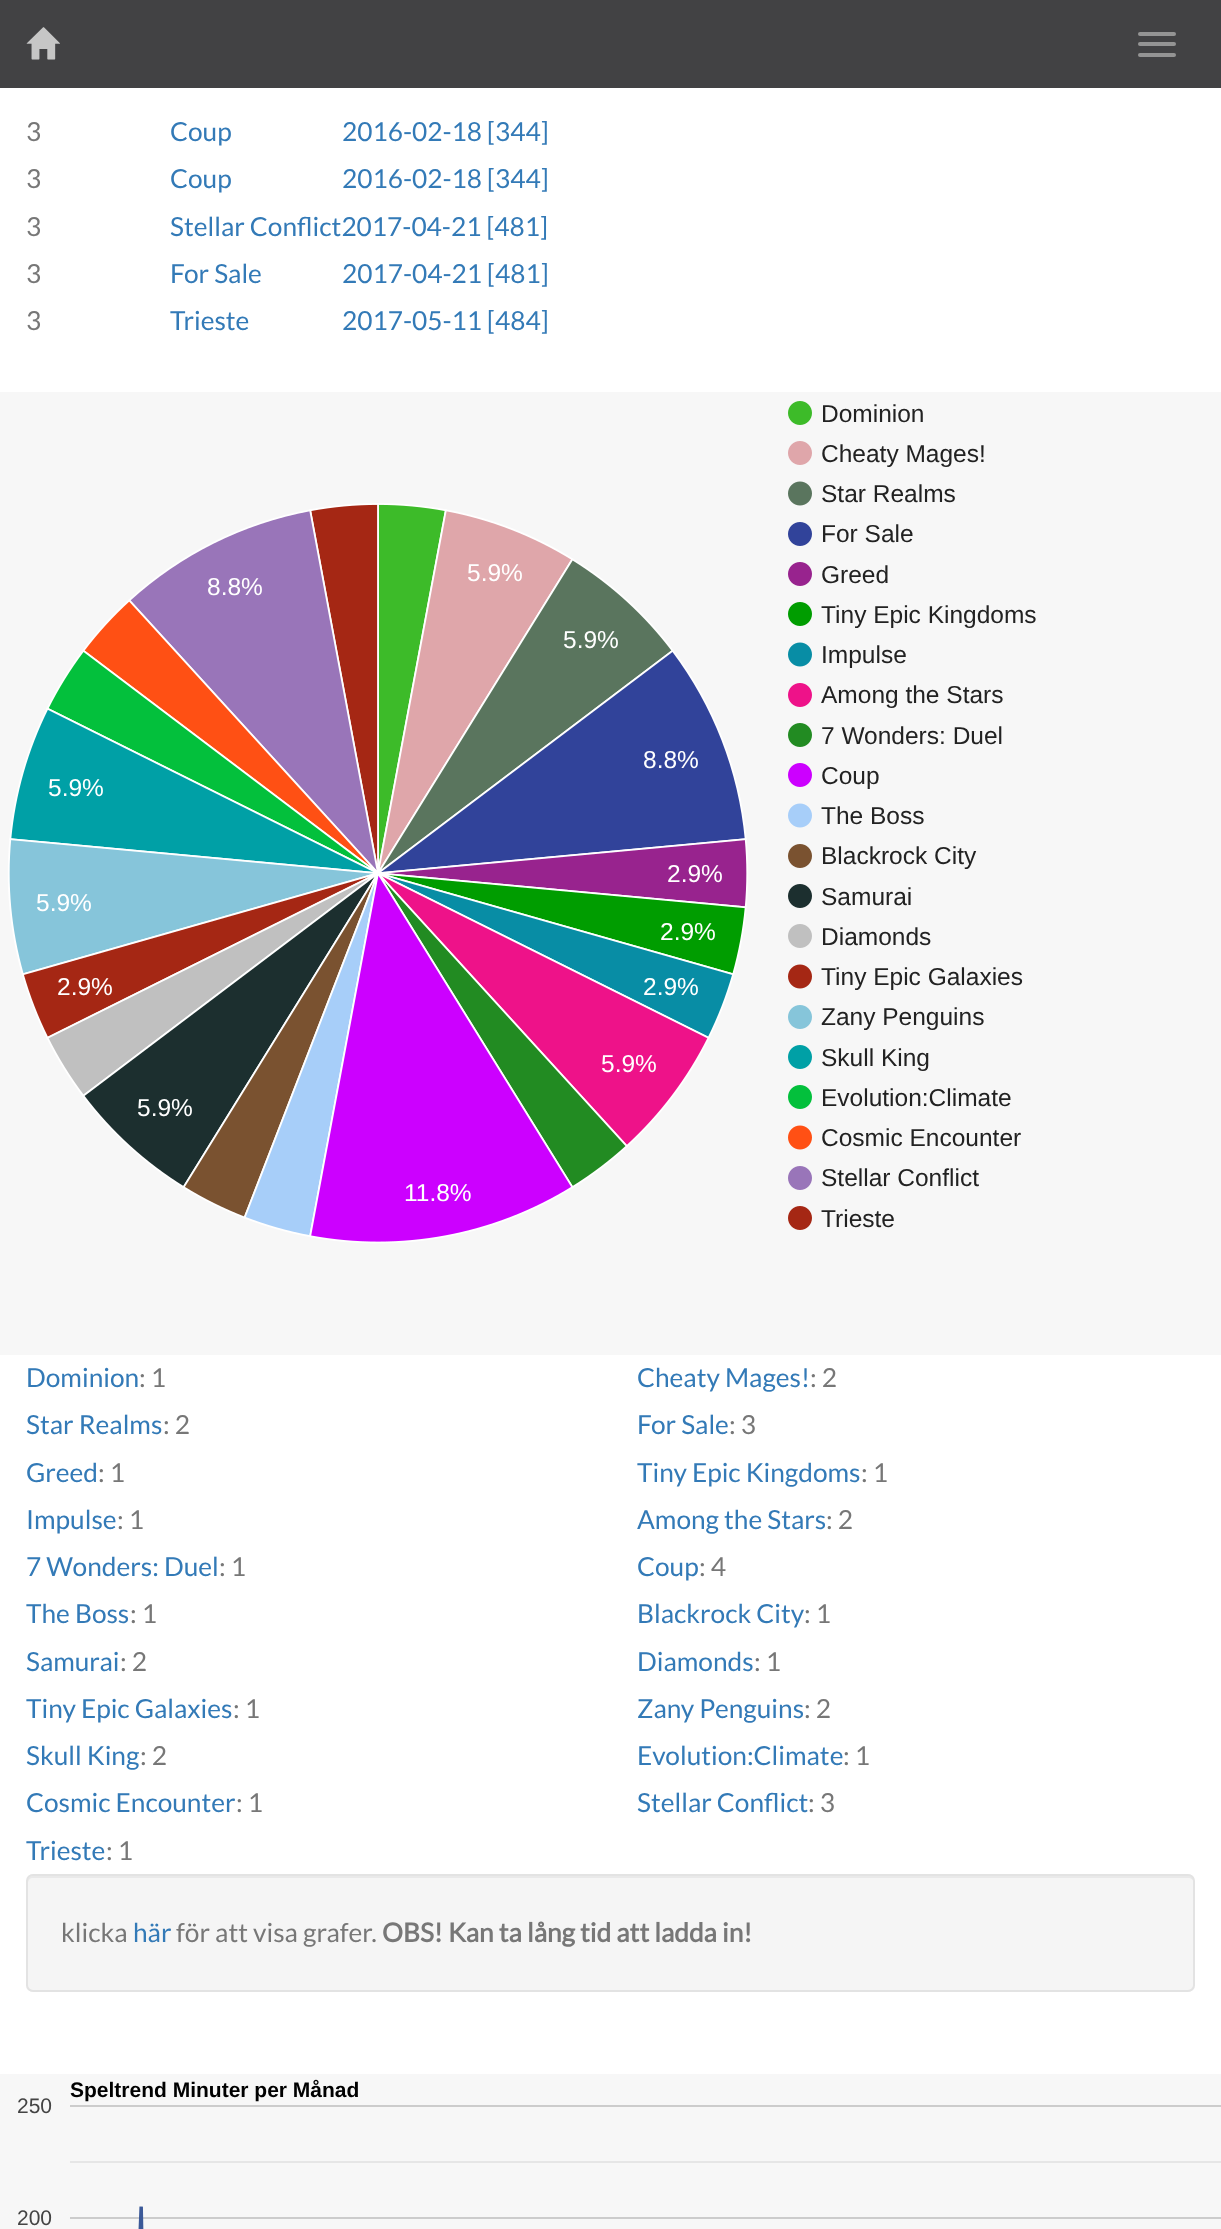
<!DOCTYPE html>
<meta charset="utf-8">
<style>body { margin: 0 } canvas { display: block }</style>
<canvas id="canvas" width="1221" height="2229"></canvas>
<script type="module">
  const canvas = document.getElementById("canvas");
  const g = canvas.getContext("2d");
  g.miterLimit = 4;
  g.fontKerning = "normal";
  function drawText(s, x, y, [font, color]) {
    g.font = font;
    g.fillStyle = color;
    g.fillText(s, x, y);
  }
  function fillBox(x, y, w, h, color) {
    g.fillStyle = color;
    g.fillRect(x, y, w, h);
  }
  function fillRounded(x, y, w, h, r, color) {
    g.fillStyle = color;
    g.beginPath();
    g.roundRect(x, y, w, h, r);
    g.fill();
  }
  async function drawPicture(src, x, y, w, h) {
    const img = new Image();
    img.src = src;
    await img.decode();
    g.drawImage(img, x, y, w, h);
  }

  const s1 = ["26.25px Lato", "#777777"];
  const s2 = ["26.25px Lato", "#337AB7"];
  const s3 = ["24.5px Liberation Sans", "#222222"];
  const s4 = ["24.5px Liberation Sans", "#FFFFFF"];
  const s5 = ["bold 26.25px Lato", "#777777"];
  const s6 = ["bold 21px Liberation Sans", "#000000"];
  const s7 = ["21px Liberation Sans", "#444444"];

  fillBox(0, 0, 1221, 2229, "#FFFFFF");
  fillBox(0, 0, 1221, 88, "rgba(45, 45, 48, 0.9)");
  await drawPicture("pic1.png", 26, 27, 34, 33);
  fillRounded(1138, 32, 38, 4, 2, "#949494");
  fillRounded(1138, 42, 38, 4, 2, "#949494");
  fillRounded(1138, 53, 38, 4, 2, "#949494");
  drawText("3", 26, 141, s1);
  drawText("Coup", 170, 141, s2);
  drawText("2016-02-18 [344]", 342, 141, s2);
  drawText("3", 26, 188, s1);
  drawText("Coup", 170, 188, s2);
  drawText("2016-02-18 [344]", 342, 188, s2);
  drawText("3", 26, 236, s1);
  drawText("Stellar Conflict2017-04-21 [481]", 170, 236, s2);
  drawText("3", 26, 283, s1);
  drawText("For Sale", 170, 283, s2);
  drawText("2017-04-21 [481]", 342, 283, s2);
  drawText("3", 26, 330, s1);
  drawText("Trieste", 170, 330, s2);
  drawText("2017-05-11 [484]", 342, 330, s2);
  await drawPicture("pic2.png", 0, 392, 1221, 963);
  drawText("Dominion", 821, 422, s3);
  drawText("Cheaty Mages!", 821, 462, s3);
  drawText("Star Realms", 821, 502, s3);
  drawText("For Sale", 821, 542, s3);
  drawText("5.9%", 467, 581, s4);
  drawText("Greed", 821, 583, s3);
  drawText("8.8%", 207, 595, s4);
  drawText("Tiny Epic Kingdoms", 821, 623, s3);
  drawText("5.9%", 563, 648, s4);
  drawText("Impulse", 821, 663, s3);
  drawText("Among the Stars", 821, 703, s3);
  drawText("7 Wonders: Duel", 821, 744, s3);
  drawText("8.8%", 643, 768, s4);
  drawText("5.9%", 48, 796, s4);
  drawText("Coup", 821, 784, s3);
  drawText("The Boss", 821, 824, s3);
  drawText("Blackrock City", 821, 864, s3);
  drawText("2.9%", 667, 882, s4);
  drawText("5.9%", 36, 911, s4);
  drawText("Samurai", 821, 905, s3);
  drawText("2.9%", 660, 940, s4);
  drawText("Diamonds", 821, 945, s3);
  drawText("2.9%", 57, 995, s4);
  drawText("2.9%", 643, 995, s4);
  drawText("Tiny Epic Galaxies", 821, 985, s3);
  drawText("Zany Penguins", 821, 1025, s3);
  drawText("5.9%", 601, 1072, s4);
  drawText("Skull King", 821, 1066, s3);
  drawText("5.9%", 137, 1116, s4);
  drawText("Evolution:Climate", 821, 1106, s3);
  drawText("Cosmic Encounter", 821, 1146, s3);
  drawText("Stellar Conflict", 821, 1186, s3);
  drawText("11.8%", 404, 1201, s4);
  drawText("Trieste", 821, 1227, s3);
  drawText("Dominion", 26, 1387, s2);
  drawText(": 1", 139, 1387, s1);
  drawText("Cheaty Mages!", 637, 1387, s2);
  drawText(": 2", 810, 1387, s1);
  drawText("Star Realms", 26, 1434, s2);
  drawText(": 2", 163, 1434, s1);
  drawText("For Sale", 637, 1434, s2);
  drawText(": 3", 729, 1434, s1);
  drawText("Greed", 26, 1482, s2);
  drawText(": 1", 98, 1482, s1);
  drawText("Tiny Epic Kingdoms", 637, 1482, s2);
  drawText(": 1", 861, 1482, s1);
  drawText("Impulse", 26, 1529, s2);
  drawText(": 1", 117, 1529, s1);
  drawText("Among the Stars", 637, 1529, s2);
  drawText(": 2", 826, 1529, s1);
  drawText("7 Wonders: Duel", 26, 1576, s2);
  drawText(": 1", 219, 1576, s1);
  drawText("Coup", 637, 1576, s2);
  drawText(": 4", 699, 1576, s1);
  drawText("The Boss", 26, 1623, s2);
  drawText(": 1", 130, 1623, s1);
  drawText("Blackrock City", 637, 1623, s2);
  drawText(": 1", 804, 1623, s1);
  drawText("Samurai", 26, 1671, s2);
  drawText(": 2", 120, 1671, s1);
  drawText("Diamonds", 637, 1671, s2);
  drawText(": 1", 754, 1671, s1);
  drawText("Tiny Epic Galaxies", 26, 1718, s2);
  drawText(": 1", 233, 1718, s1);
  drawText("Zany Penguins", 637, 1718, s2);
  drawText(": 2", 804, 1718, s1);
  drawText("Skull King", 26, 1765, s2);
  drawText(": 2", 140, 1765, s1);
  drawText("Evolution:Climate", 637, 1765, s2);
  drawText(": 1", 843, 1765, s1);
  drawText("Cosmic Encounter", 26, 1812, s2);
  drawText(": 1", 236, 1812, s1);
  drawText("Stellar Conflict", 637, 1812, s2);
  drawText(": 3", 808, 1812, s1);
  drawText("Trieste", 26, 1860, s2);
  drawText(": 1", 106, 1860, s1);
  fillRounded(26, 1874, 1169, 118, 7, "#F5F5F5");
  g.fillStyle = "#E9E9E9";
  g.beginPath();
  g.moveTo(33, 1878);
  g.lineTo(1188, 1878);
  g.bezierCurveTo(1191, 1878, 1194, 1880, 1194, 1883);
  g.lineTo(1194, 1881);
  g.bezierCurveTo(1194, 1878, 1192, 1876, 1189, 1876);
  g.lineTo(33, 1876);
  g.bezierCurveTo(30, 1876, 28, 1878, 28, 1881);
  g.lineTo(28, 1883);
  g.bezierCurveTo(28, 1880, 30, 1878, 33, 1878);
  g.closePath();
  g.fill();
  g.beginPath();
  g.roundRect(27, 1875, 1167, 116, 6);
  g.strokeStyle = "#E3E3E3";
  g.lineWidth = 2;
  g.stroke();
  drawText("klicka", 61, 1942, s1);
  drawText("här", 133, 1942, s2);
  drawText("för att visa grafer.", 176, 1942, s1);
  drawText("OBS! Kan ta lång tid att ladda in!", 382, 1942, s5);
  await drawPicture("pic3.png", 0, 2074, 1221, 155);
  drawText("Speltrend Minuter per Månad", 70, 2097, s6);
  drawText("250", 17, 2113, s7);
  drawText("200", 17, 2225, s7);
</script>
